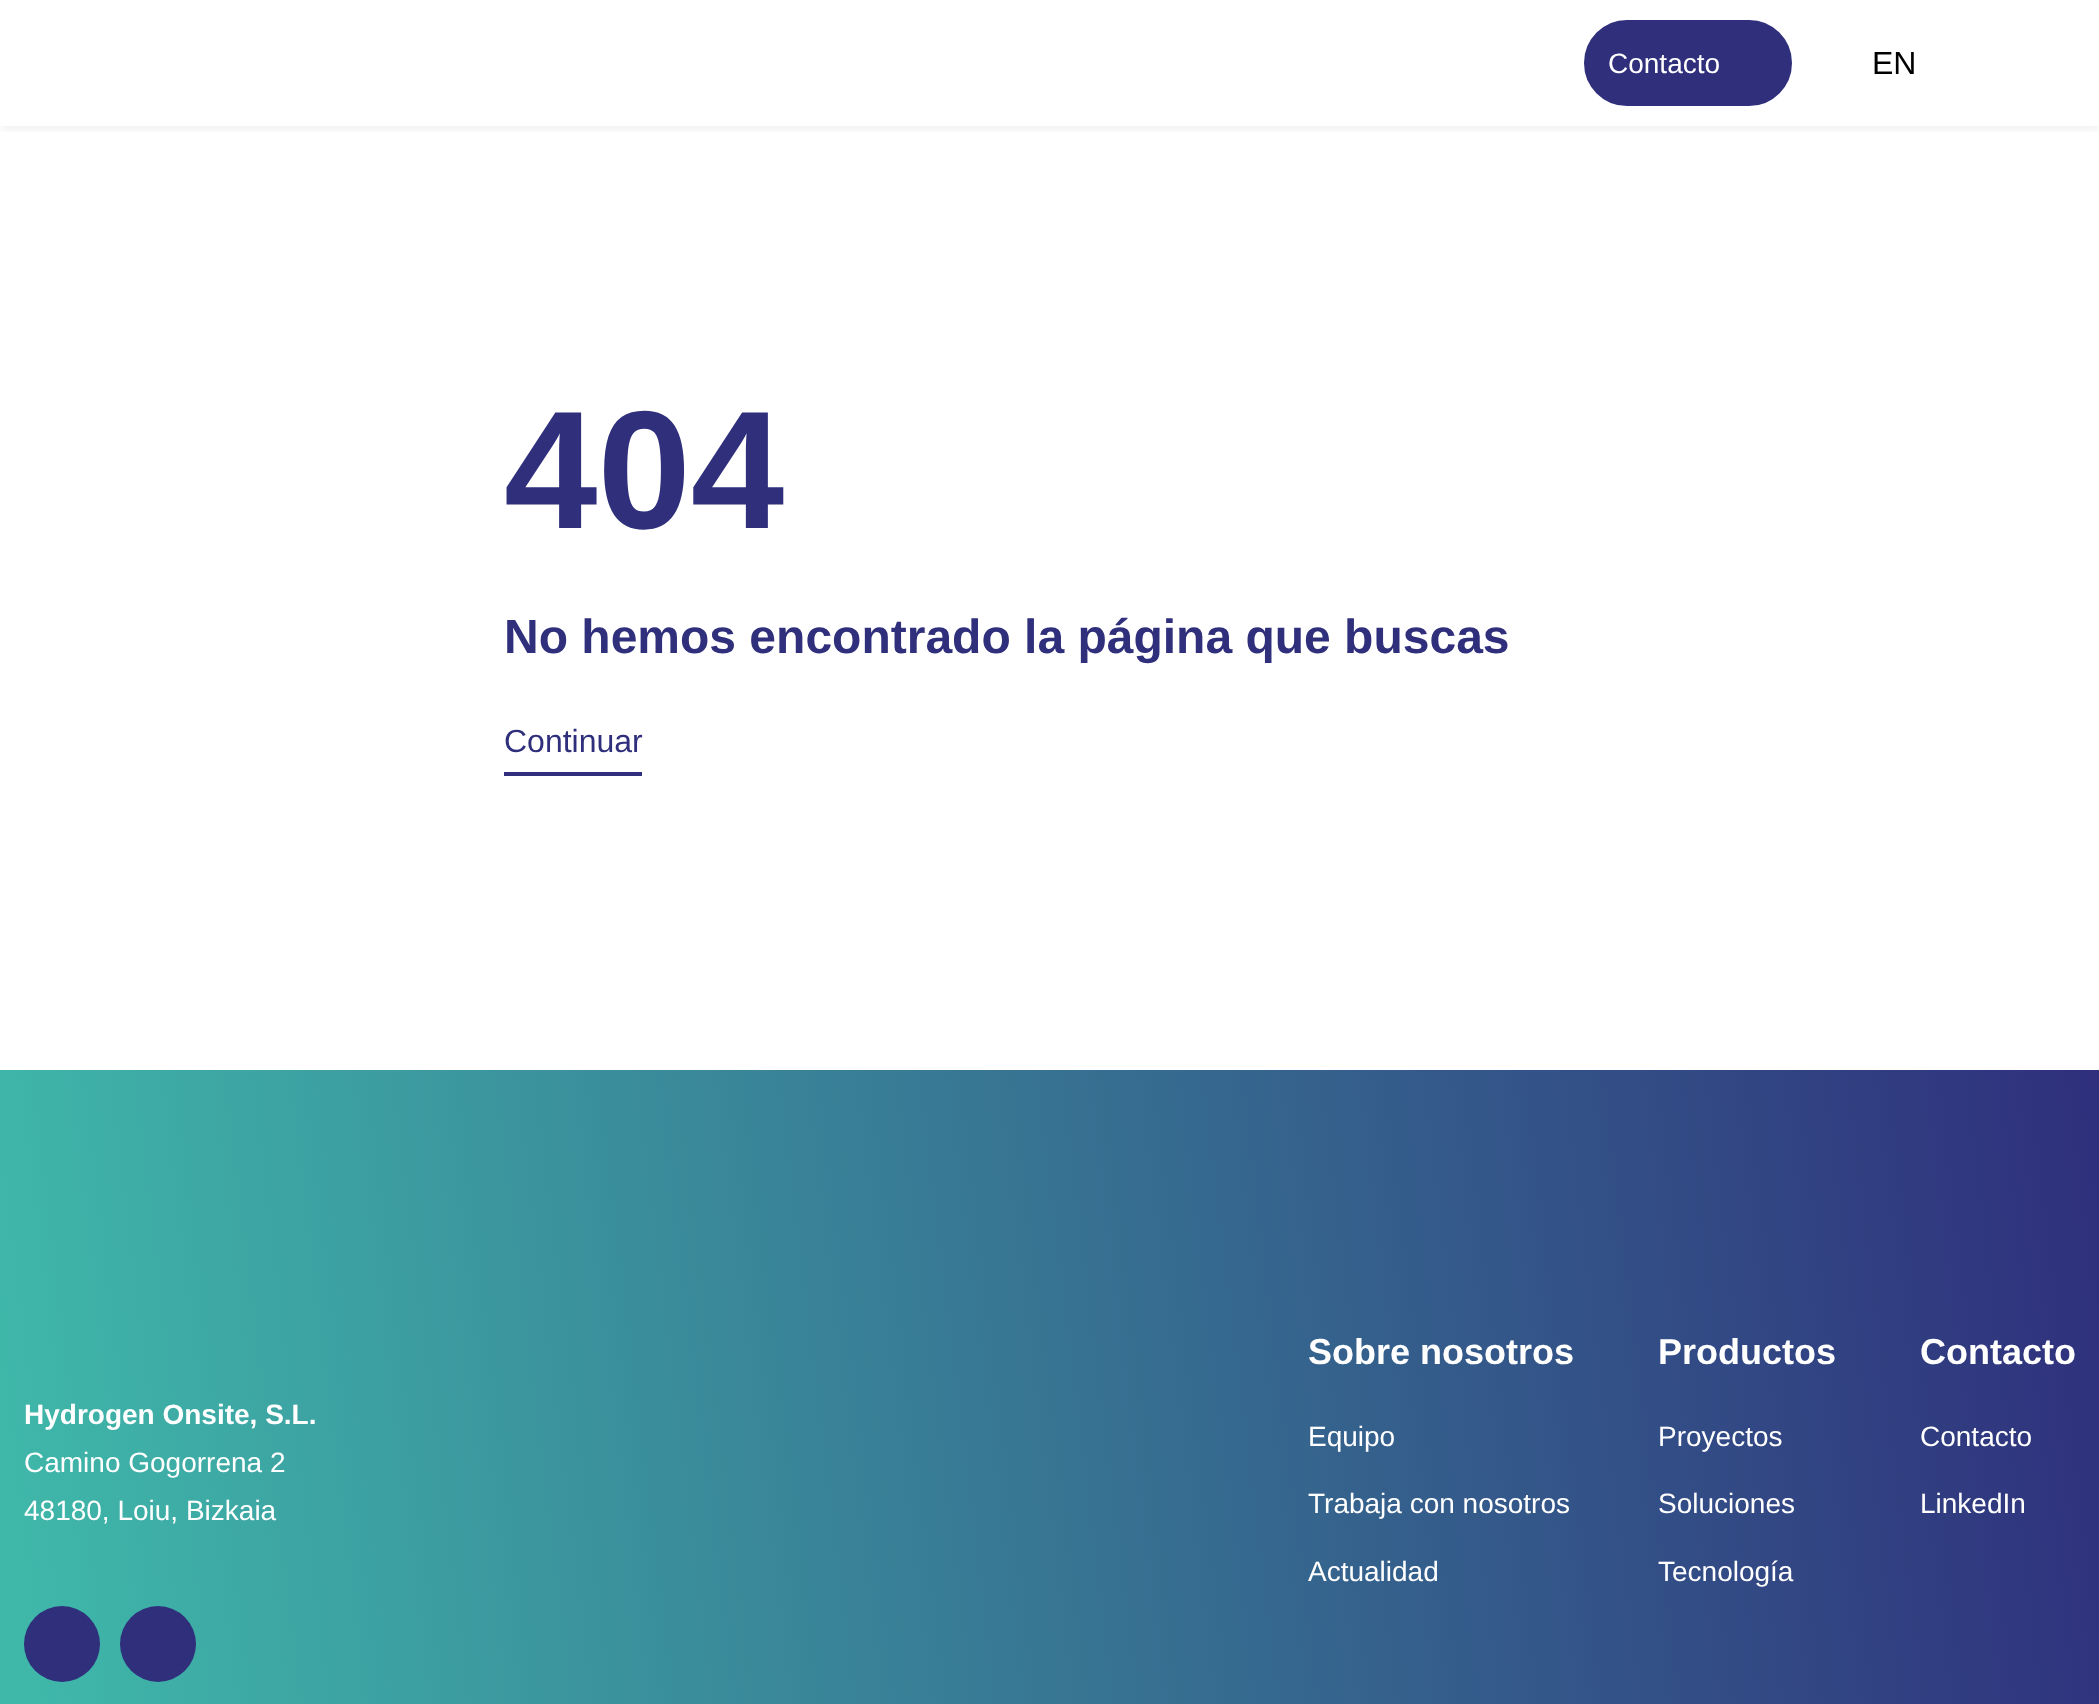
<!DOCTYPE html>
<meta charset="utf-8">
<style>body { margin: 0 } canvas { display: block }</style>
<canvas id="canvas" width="2099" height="1704"></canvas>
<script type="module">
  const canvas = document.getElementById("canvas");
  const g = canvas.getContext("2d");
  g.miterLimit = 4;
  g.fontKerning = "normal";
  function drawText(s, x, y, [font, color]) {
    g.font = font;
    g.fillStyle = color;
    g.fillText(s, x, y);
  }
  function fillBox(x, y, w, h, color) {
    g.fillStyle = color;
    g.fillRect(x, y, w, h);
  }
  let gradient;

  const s1 = ["28px Liberation Sans", "#FFFFFF"];
  const s2 = ["32px Liberation Sans", "#000000"];
  const s3 = ["bold 168px Liberation Sans", "#2F2F7C"];
  const s4 = ["bold 48px Liberation Sans", "#2F2F7C"];
  const s5 = ["32px Liberation Sans", "#2F2F7C"];
  const s6 = ["bold 28px Liberation Sans", "#FFFFFF"];
  const s7 = ["bold 36px Liberation Sans", "#FFFFFF"];

  fillBox(0, 0, 2099, 1704, "#FFFFFF");
  g.save();
  g.beginPath();
  g.rect(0, 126, 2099, 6);
  g.clip();
  g.fillStyle = "rgba(0, 0, 0, 0.1)";
  g.filter = "blur(7px)";
  g.beginPath();
  g.rect(0, 0, 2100, 126);
  g.fill();
  g.filter = "none";
  g.restore();
  g.fillStyle = "#2F2F7C";
  g.beginPath();
  g.roundRect(1586, 22, 204, 82, 41);
  g.fill();
  g.strokeStyle = "#2F2F7C";
  g.lineWidth = 4;
  g.stroke();
  drawText("Contacto", 1608, 73, s1);
  drawText("EN", 1872, 74, s2);
  drawText("404", 504, 528, s3);
  drawText("No hemos encontrado la página que buscas", 504, 653, s4);
  fillBox(504, 772, 138, 4, "#2F2F7C");
  drawText("Continuar", 504, 752, s5);
  gradient = g.createLinearGradient(-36, 1630, 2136, 1364);
  gradient.addColorStop(0.03, "#3FB7A9");
  gradient.addColorStop(1, "#2F2F7C");
  g.fillStyle = gradient;
  g.fillRect(0, 1070, 2099, 634);
  drawText("Hydrogen Onsite, S.L.", 24, 1424, s6);
  drawText("Camino Gogorrena 2", 24, 1472, s1);
  drawText("48180, Loiu, Bizkaia", 24, 1520, s1);
  g.fillStyle = "#2F2F7C";
  g.beginPath();
  g.arc(62, 1644, 38, 0, Math.PI * 2);
  g.fill();
  g.beginPath();
  g.arc(158, 1644, 38, 0, Math.PI * 2);
  g.fill();
  drawText("Sobre nosotros", 1308, 1364, s7);
  drawText("Equipo", 1308, 1446, s1);
  drawText("Trabaja con nosotros", 1308, 1513, s1);
  drawText("Actualidad", 1308, 1581, s1);
  drawText("Productos", 1658, 1364, s7);
  drawText("Proyectos", 1658, 1446, s1);
  drawText("Soluciones", 1658, 1513, s1);
  drawText("Tecnología", 1658, 1581, s1);
  drawText("Contacto", 1920, 1364, s7);
  drawText("Contacto", 1920, 1446, s1);
  drawText("LinkedIn", 1920, 1513, s1);
</script>
